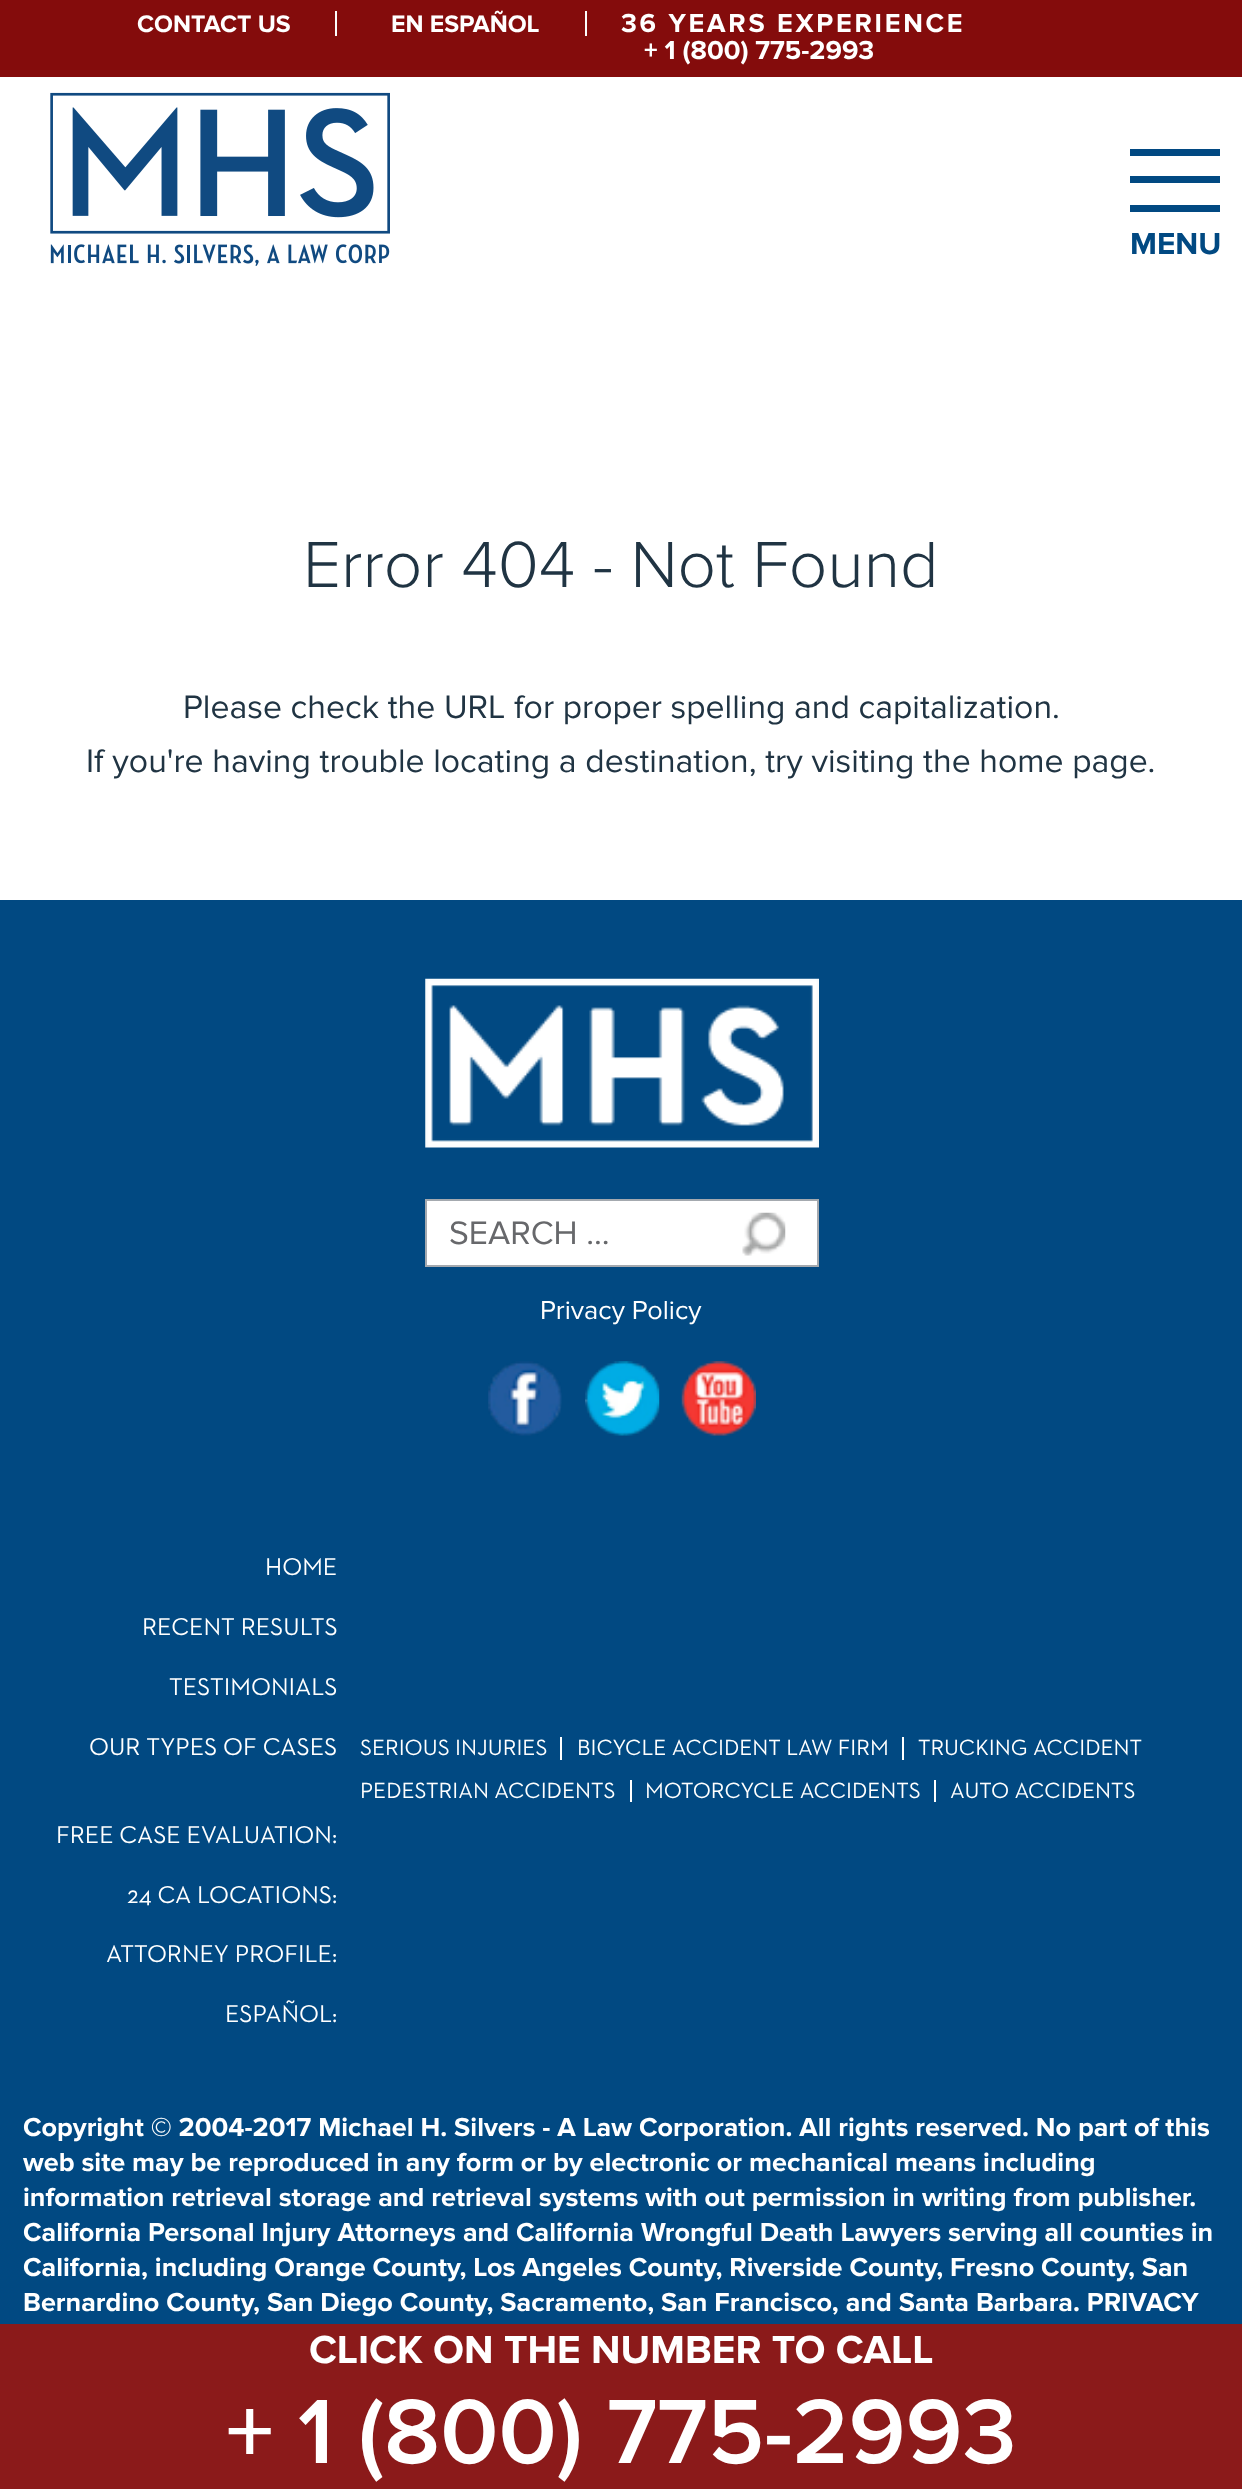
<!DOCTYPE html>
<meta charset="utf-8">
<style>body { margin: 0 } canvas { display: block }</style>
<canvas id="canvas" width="1242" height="2489"></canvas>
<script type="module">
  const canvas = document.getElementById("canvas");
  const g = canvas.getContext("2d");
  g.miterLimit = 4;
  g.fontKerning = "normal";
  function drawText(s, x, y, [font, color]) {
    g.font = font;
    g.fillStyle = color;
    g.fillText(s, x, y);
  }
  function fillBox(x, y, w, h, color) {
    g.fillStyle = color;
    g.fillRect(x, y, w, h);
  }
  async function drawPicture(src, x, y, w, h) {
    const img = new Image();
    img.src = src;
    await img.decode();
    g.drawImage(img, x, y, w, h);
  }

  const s1 = ["bold 24.75px Proxima Nova", "#FFFFFF"];
  const s2 = ["bold 27px Proxima Nova", "#FFFFFF"];
  const s3 = ["bold 31.5px Proxima Nova", "#014982"];
  const s4 = ["300 67.5px Proxima Nova", "#203443"];
  const s5 = ["33.75px Proxima Nova", "#203443"];
  const s6 = ["33.75px Proxima Nova", "#67686B"];
  const s7 = ["27px Proxima Nova", "#FFFFFF"];
  const s8 = ["24.75px 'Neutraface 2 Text'", "#FFFFFF"];
  const s9 = ["22.5px 'Neutraface 2 Text'", "#FFFFFF"];
  const s10 = ["bold 40.5px Proxima Nova", "#FFFFFF"];
  const s11 = ["600 94.5px Proxima Nova", "#FFFFFF"];

  fillBox(0, 0, 1242, 2489, "#FFFFFF");
  fillBox(0, 0, 1242, 77, "#840C0C");
  fillBox(335, 11, 2, 25, "#FDFDFD");
  drawText("CONTACT US", 137, 32, s1);
  fillBox(585, 11, 2, 25, "#FDFDFD");
  drawText("EN ESPAÑOL", 391, 32, s1);
  g.letterSpacing = "2.75px";
  drawText("36 YEARS EXPERIENCE", 621, 32, s2);
  g.letterSpacing = "0px";
  drawText("+ 1 (800) 775-2993", 644, 59, s2);
  await drawPicture("pic1.png", 50, 92, 340, 174);
  fillBox(1130, 149, 90, 7, "#014982");
  fillBox(1130, 176, 90, 7, "#014982");
  fillBox(1130, 205, 90, 7, "#014982");
  drawText("MENU", 1130, 254, s3);
  drawText("Error 404 - Not Found", 303, 587, s4);
  drawText("Please check the URL for proper spelling and capitalization.", 183, 718, s5);
  drawText("If you're having trouble locating a destination, try visiting the home page.", 86, 772, s5);
  fillBox(0, 900, 1242, 1424, "#014982");
  await drawPicture("pic2.png", 425, 978, 394, 170);
  g.fillStyle = "#FFFFFF";
  g.beginPath();
  g.rect(426, 1200, 392, 66);
  g.fill();
  g.strokeStyle = "#A4A9AF";
  g.lineWidth = 2;
  g.stroke();
  drawText("SEARCH …", 449, 1244, s6);
  await drawPicture("pic3.png", 742, 1212, 44, 44);
  drawText("Privacy Policy", 540, 1319, s7);
  await drawPicture("pic4.png", 488, 1361, 74, 75);
  await drawPicture("pic5.png", 585, 1361, 75, 75);
  await drawPicture("pic6.png", 681, 1361, 75, 75);
  drawText("HOME", 265, 1575, s8);
  drawText("RECENT RESULTS", 142, 1635, s8);
  drawText("TESTIMONIALS", 169, 1695, s8);
  drawText("OUR TYPES OF CASES", 89, 1755, s8);
  drawText("SERIOUS INJURIES", 360, 1755, s9);
  fillBox(560, 1737, 2, 23, "#FFFFFF");
  drawText("BICYCLE ACCIDENT LAW FIRM", 577, 1755, s9);
  fillBox(902, 1737, 2, 23, "#FFFFFF");
  drawText("TRUCKING ACCIDENT", 918, 1755, s9);
  drawText("PEDESTRIAN ACCIDENTS", 360, 1798, s9);
  fillBox(630, 1780, 2, 22, "#FFFFFF");
  drawText("MOTORCYCLE ACCIDENTS", 645, 1798, s9);
  fillBox(934, 1780, 2, 22, "#FFFFFF");
  drawText("AUTO ACCIDENTS", 950, 1798, s9);
  drawText("FREE CASE EVALUATION:", 56, 1843, s8);
  drawText("24 CA LOCATIONS:", 127, 1903, s8);
  drawText("ATTORNEY PROFILE:", 106, 1962, s8);
  drawText("ESPAÑOL:", 225, 2022, s8);
  drawText("Copyright © 2004-2017 Michael H. Silvers - A Law Corporation. All rights reserved. No part of this", 23, 2136, s2);
  drawText("web site may be reproduced in any form or by electronic or mechanical means including", 23, 2171, s2);
  drawText("information retrieval storage and retrieval systems with out permission in writing from publisher.", 23, 2206, s2);
  drawText("California Personal Injury Attorneys and California Wrongful Death Lawyers serving all counties in", 23, 2241, s2);
  drawText("California, including Orange County, Los Angeles County, Riverside County, Fresno County, San", 23, 2276, s2);
  drawText("Bernardino County, San Diego County, Sacramento, San Francisco, and Santa Barbara. PRIVACY", 23, 2311, s2);
  fillBox(0, 2324, 1242, 165, "#8B1A1A");
  drawText("CLICK ON THE NUMBER TO CALL", 309, 2363, s10);
  drawText("+ 1 (800) 775-2993", 226, 2463, s11);
</script>
